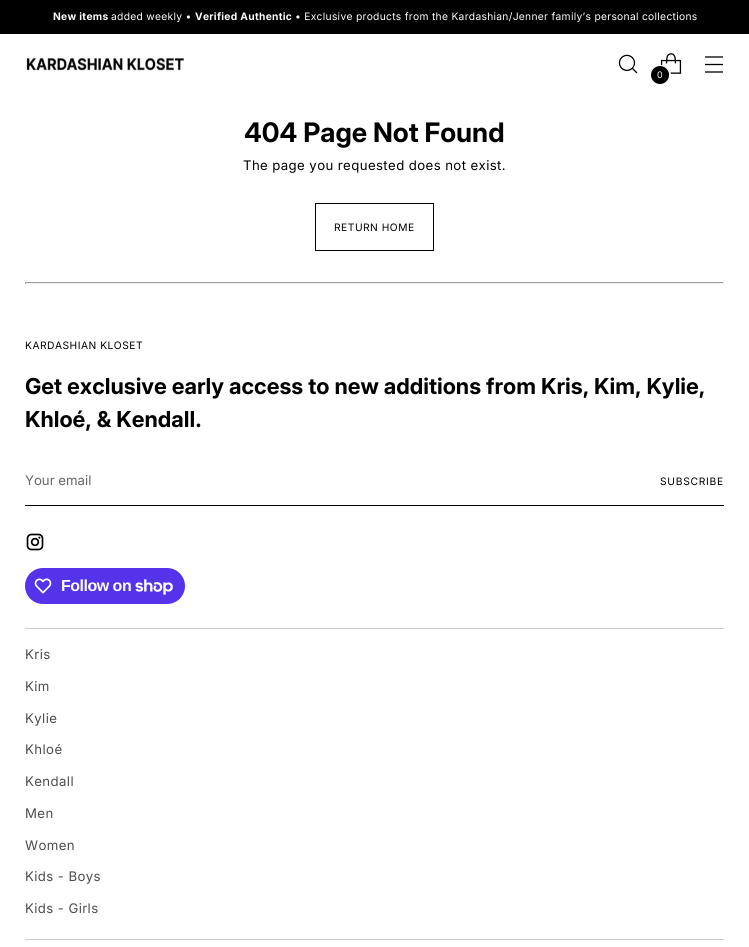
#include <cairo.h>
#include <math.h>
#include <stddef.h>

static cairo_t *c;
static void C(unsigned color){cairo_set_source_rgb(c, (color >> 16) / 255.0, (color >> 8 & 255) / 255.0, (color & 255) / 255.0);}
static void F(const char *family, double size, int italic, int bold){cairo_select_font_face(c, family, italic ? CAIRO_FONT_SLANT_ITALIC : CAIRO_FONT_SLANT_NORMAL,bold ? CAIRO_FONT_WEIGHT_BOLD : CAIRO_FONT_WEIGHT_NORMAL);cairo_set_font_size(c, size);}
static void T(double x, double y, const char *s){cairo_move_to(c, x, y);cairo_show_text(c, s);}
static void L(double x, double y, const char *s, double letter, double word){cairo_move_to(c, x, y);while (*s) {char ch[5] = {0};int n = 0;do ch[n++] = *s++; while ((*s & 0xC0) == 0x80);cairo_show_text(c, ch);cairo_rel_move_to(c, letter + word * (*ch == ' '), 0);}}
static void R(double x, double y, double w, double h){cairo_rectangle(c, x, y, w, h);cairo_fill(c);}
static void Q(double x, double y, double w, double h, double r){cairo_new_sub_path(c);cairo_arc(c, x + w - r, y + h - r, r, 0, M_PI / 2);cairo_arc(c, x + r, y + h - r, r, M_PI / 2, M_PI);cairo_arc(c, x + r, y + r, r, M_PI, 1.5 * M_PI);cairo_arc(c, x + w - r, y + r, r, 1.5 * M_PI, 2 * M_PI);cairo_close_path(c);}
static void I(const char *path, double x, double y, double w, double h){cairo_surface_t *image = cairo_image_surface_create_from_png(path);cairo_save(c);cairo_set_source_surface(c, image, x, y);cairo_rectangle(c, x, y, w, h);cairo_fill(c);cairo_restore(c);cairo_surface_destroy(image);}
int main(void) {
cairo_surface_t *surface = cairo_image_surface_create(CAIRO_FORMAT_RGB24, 749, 947);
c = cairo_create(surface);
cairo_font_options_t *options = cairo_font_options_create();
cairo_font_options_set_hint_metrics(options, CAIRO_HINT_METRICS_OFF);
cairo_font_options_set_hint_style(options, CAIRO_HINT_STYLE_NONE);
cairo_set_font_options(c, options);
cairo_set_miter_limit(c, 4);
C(0xffffff);
cairo_paint(c);
C(0x000000);
R(0,0,749,34);
F("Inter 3",10.25,0,1);
C(0xffffff);
L(53,20,"New items",.3,0);
F("Inter",10.25,0,0);
L(111,20,"added weekly •",.3,0);
F("Inter 3",10.25,0,1);
L(195,20,"Verified Authentic",.3,0);
F("Inter",10.25,0,0);
L(295,20,"• Exclusive products from the Kardashian/Jenner family’s personal collections",.3,0);
I("1.png",26,57,158,14);
I("2.png",618,54,20,20);
cairo_new_path(c);
cairo_move_to(c,705,64.5);
cairo_line_to(c,723,64.5);
cairo_move_to(c,705,57);
cairo_line_to(c,723,57);
cairo_move_to(c,705,72);
cairo_line_to(c,723,72);
C(0x000000);
cairo_set_line_width(c,1.3);
cairo_stroke(c);
I("3.png",660,53,22,21);
cairo_arc(c,660.5,75.5,9.5,0,2 * M_PI);
C(0xffffff);
cairo_set_line_width(c,2);
cairo_stroke(c);
C(0x000000);
cairo_arc(c,660,75,9,0,2 * M_PI);
cairo_fill(c);
F("Inter",9,0,0);
C(0xffffff);
L(657,78,"0",.4,0);
F("Inter",26.9,0,1);
C(0x000000);
T(244,142,"404 Page Not Found");
F("Inter",13.2,0,0);
L(243,170,"The page you requested does not exist.",.4,0);
cairo_rectangle(c,315.5,203.5,118,47);
cairo_set_line_width(c,1);
cairo_stroke(c);
F("Inter",10.25,0,0);
L(334,231,"RETURN HOME",.5,0);
C(0x9f9f9f);
R(25,282,699,1);
C(0xeeeeee);
R(723,282,1,2);
R(25,283,699,1);
C(0x9f9f9f);
R(25,282,1,2);
C(0xcccccc);
R(25,628,699,1);
C(0x000000);
L(25,349,"KARDASHIAN KLOSET",.5,0);
F("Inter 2",21.95,0,1);
T(25,394,"Get exclusive early access to new additions from Kris, Kim, Kylie,");
T(25,427,"Khloé, & Kendall.");
R(25,505,699,1);
F("Inter",13.2,0,0);
C(0x666666);
T(25,485,"Your email");
F("Inter",10.25,0,0);
C(0x000000);
L(660,485,"SUBSCRIBE",.75,0);
I("4.png",26,533,18,18);
C(0x5433eb);
Q(25,568,160,36,18);
cairo_fill(c);
I("5.png",34,578,18,16);
F("Liberation Sans",16,0,1);
C(0xffffff);
L(61,591,"Follow on",-.5,0);
I("6.png",135,579,38,16);
C(0xcccccc);
R(25,939,699,1);
F("Inter",13.2,0,0);
C(0x4d4d4d);
L(25,659,"Kris",.4,0);
L(25,691,"Kim",.4,0);
L(25,723,"Kylie",.4,0);
L(25,754,"Khloé",.4,0);
L(25,786,"Kendall",.4,0);
L(25,818,"Men",.4,0);
L(25,850,"Women",.4,0);
L(25,881,"Kids - Boys",.4,0);
L(25,913,"Kids - Girls",.4,0);
cairo_surface_write_to_png(surface, "o.png");
cairo_font_options_destroy(options);
cairo_destroy(c);
cairo_surface_destroy(surface);
return 0;
}
